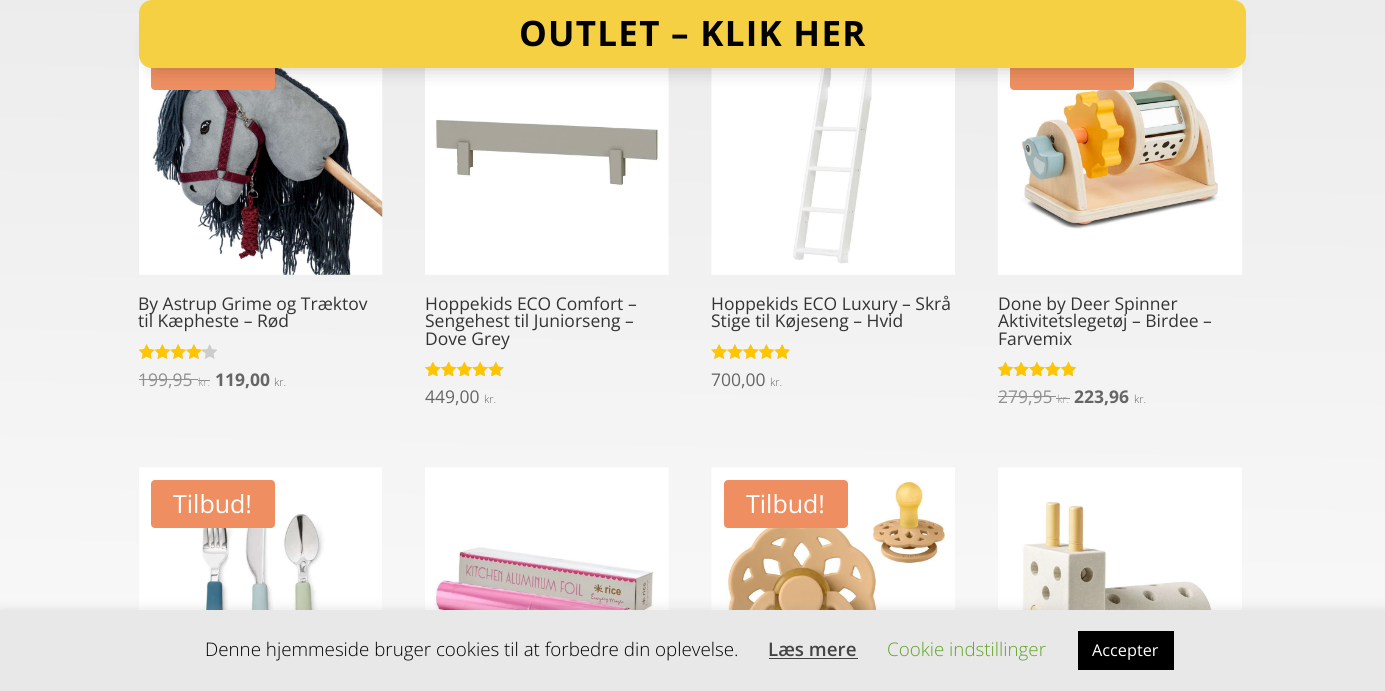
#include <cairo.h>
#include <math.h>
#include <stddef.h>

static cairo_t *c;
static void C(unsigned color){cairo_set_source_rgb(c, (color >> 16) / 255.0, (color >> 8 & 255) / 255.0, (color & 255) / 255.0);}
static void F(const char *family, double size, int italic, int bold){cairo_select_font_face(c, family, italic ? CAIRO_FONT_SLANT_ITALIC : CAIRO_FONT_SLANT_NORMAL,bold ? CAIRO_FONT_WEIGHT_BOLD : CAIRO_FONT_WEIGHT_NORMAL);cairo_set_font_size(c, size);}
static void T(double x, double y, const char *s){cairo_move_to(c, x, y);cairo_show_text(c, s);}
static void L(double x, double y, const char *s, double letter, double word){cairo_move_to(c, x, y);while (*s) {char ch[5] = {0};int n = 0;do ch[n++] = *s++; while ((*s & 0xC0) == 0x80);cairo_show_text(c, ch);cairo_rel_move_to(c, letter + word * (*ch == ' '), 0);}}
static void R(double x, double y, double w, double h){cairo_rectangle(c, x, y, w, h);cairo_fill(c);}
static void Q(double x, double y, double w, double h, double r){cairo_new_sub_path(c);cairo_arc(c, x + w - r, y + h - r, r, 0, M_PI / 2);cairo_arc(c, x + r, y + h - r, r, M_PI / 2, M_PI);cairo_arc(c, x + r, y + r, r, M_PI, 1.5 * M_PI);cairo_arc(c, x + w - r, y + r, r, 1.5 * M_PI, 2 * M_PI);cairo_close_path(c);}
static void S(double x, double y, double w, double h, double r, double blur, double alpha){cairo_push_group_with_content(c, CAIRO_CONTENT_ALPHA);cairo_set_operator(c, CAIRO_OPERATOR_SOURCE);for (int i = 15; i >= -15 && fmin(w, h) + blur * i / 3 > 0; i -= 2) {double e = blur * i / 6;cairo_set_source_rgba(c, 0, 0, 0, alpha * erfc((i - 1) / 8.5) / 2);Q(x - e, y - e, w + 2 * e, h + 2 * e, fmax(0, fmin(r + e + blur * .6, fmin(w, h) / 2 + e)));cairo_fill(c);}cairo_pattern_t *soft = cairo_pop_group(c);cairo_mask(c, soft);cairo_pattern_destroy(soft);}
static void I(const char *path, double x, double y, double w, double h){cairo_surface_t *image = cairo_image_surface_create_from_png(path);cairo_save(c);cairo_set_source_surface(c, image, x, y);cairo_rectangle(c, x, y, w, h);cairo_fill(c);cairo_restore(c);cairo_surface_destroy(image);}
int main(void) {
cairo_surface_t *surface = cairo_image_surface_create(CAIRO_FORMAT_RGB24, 1385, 691);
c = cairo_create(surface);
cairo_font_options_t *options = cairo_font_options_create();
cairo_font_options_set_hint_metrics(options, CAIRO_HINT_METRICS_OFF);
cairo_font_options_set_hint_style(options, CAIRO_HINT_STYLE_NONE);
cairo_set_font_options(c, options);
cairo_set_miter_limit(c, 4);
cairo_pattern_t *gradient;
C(0xffffff);
cairo_paint(c);
gradient = cairo_pattern_create_linear(676,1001,709,-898);
cairo_pattern_add_color_stop_rgba(gradient,0,1,1,1,1);
cairo_pattern_add_color_stop_rgba(gradient,1,0.859,0.859,0.859,1);
cairo_set_source(c,gradient);
cairo_pattern_destroy(gradient);
R(0,0,1385,610);
I("1.png",139,55,244,220);
C(0xef8f61);
Q(151,43,124,47,4);
cairo_fill(c);
I("4.png",425,68,244,207);
I("7.png",711,68,244,207);
I("10.png",997,63,246,212);
Q(1010,43,124,47,4);
cairo_fill(c);
C(0x000000);
S(156,33,1073,32,0,11,.3);
C(0xf5d042);
Q(139,0,1107,68,13);
cairo_fill(c);
F("Open Sans",35,0,1);
C(0x000000);
L(519,46,"OUTLET – KLIK HER",1.25,0);
F("Open Sans",17.5,0,0);
C(0x333333);
T(138,310,"By Astrup Grime og Træktov");
T(138,327,"til Kæpheste – Rød");
I("2.png",139,344,78,15);
I("3.png",139,344,65,15);
C(0x909090);
T(138,386,"199,95");
R(139,379,59,1);
F("Open Sans Light",11,0,0);
T(198,386,"kr.");
R(198,380,12,1);
F("Open Sans",17.5,0,1);
C(0x666666);
T(215,386,"119,00");
F("Open Sans Light",11,0,0);
T(274,386,"kr.");
F("Open Sans",17.5,0,0);
C(0x333333);
T(425,310,"Hoppekids ECO Comfort –");
T(425,327,"Sengehest til Juniorseng –");
T(425,345,"Dove Grey");
I("6.png",425,362,79,14);
I("5.png",425,361,79,15);
C(0x666666);
T(425,403,"449,00");
F("Open Sans Light",11,0,0);
T(484,403,"kr.");
F("Open Sans",17.5,0,0);
C(0x333333);
T(711,310,"Hoppekids ECO Luxury – Skrå");
T(711,327,"Stige til Køjeseng – Hvid");
I("8.png",711,344,79,15);
I("9.png",711,344,78,15);
C(0x666666);
T(711,386,"700,00");
F("Open Sans Light",11,0,0);
T(770,386,"kr.");
F("Open Sans",17.5,0,0);
C(0x333333);
T(998,310,"Done by Deer Spinner");
T(998,327,"Aktivitetslegetøj – Birdee –");
T(998,345,"Farvemix");
I("12.png",998,362,78,14);
I("11.png",998,361,79,15);
C(0x909090);
T(998,403,"279,95");
R(998,396,58,1);
F("Open Sans Light",11,0,0);
T(1057,403,"kr.");
R(1056,398,14,1);
F("Open Sans",17.5,0,1);
C(0x666666);
T(1074,403,"223,96");
F("Open Sans Light",11,0,0);
T(1134,403,"kr.");
I("13.png",139,467,243,143);
C(0xef8f61);
Q(151,480,124,48,4);
cairo_fill(c);
F("Open Sans",25,0,0);
C(0xffffff);
T(173,513,"Tilbud!");
I("14.png",425,467,244,143);
I("15.png",711,467,244,143);
C(0xef8f61);
Q(724,480,124,48,4);
cairo_fill(c);
C(0xffffff);
T(746,513,"Tilbud!");
I("16.png",998,467,244,143);
C(0xacabab);
S(0,609,1385,81,0,6,.3);
C(0xe8e8e8);
R(0,610,1385,81);
F("Open Sans Light",18.75,0,0);
C(0x000000);
T(205,656,"Denne hjemmeside bruger cookies til at forbedre din oplevelse.");
F("Open Sans SemiBold",18.75,0,0);
C(0x444444);
T(768,656,"Læs mere");
R(769,658,89,1);
F("Open Sans Light",18.75,0,0);
C(0x62a329);
T(887,656,"Cookie indstillinger");
C(0x000000);
R(1078,631,96,39);
F("Open Sans",16.25,0,0);
C(0xffffff);
T(1092,656,"Accepter");
cairo_surface_write_to_png(surface, "o.png");
cairo_font_options_destroy(options);
cairo_destroy(c);
cairo_surface_destroy(surface);
return 0;
}
